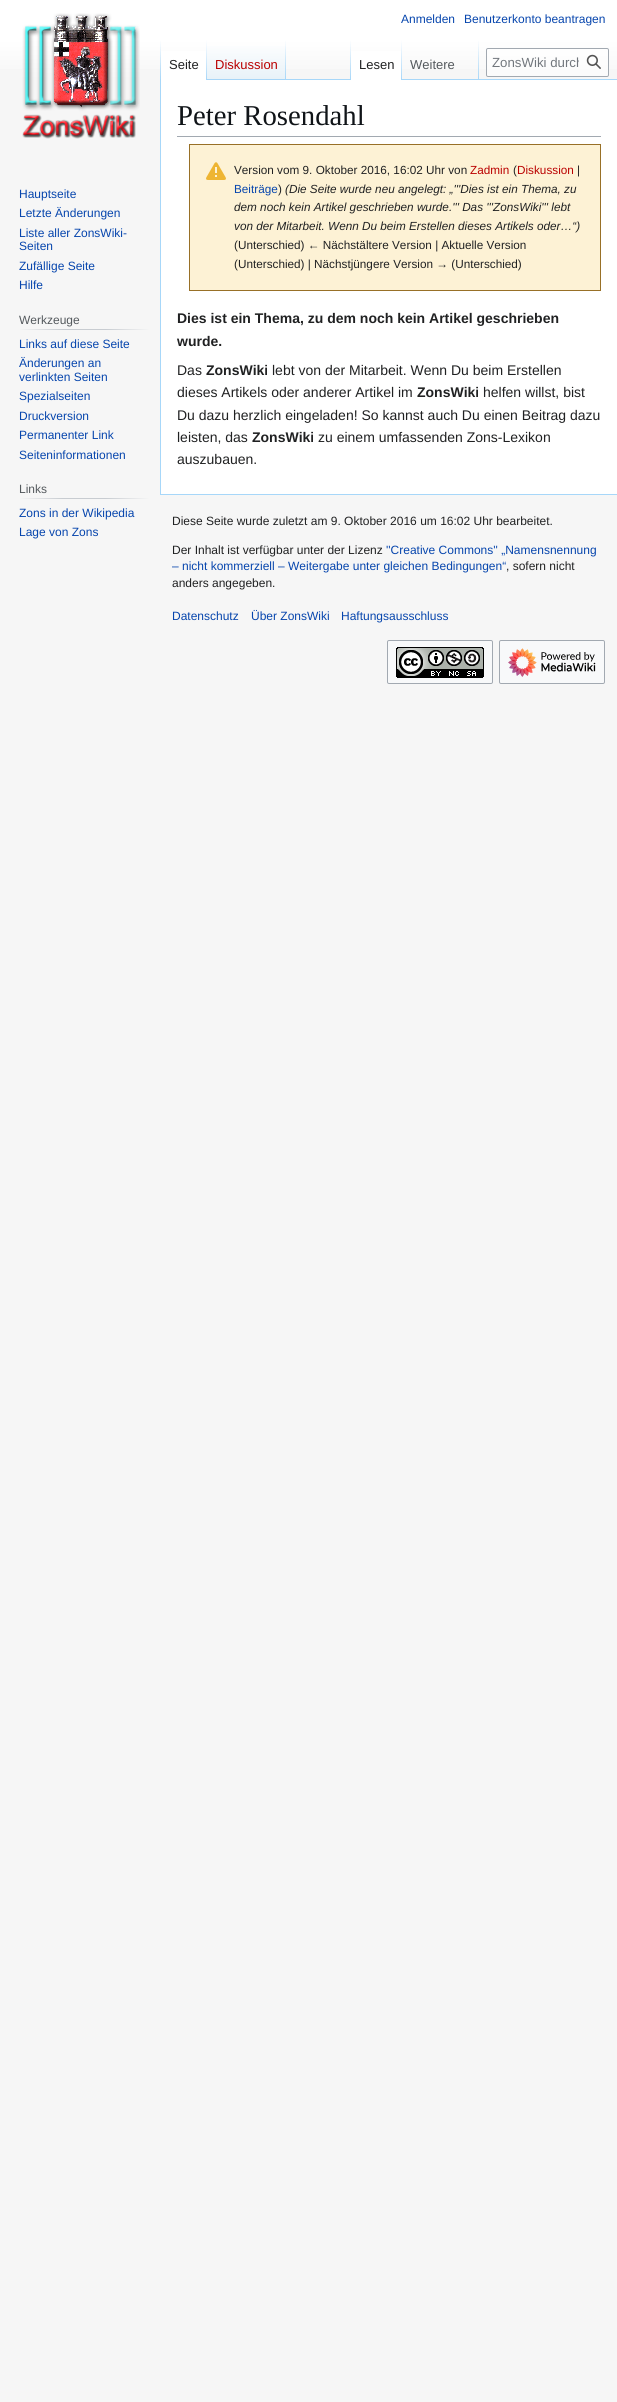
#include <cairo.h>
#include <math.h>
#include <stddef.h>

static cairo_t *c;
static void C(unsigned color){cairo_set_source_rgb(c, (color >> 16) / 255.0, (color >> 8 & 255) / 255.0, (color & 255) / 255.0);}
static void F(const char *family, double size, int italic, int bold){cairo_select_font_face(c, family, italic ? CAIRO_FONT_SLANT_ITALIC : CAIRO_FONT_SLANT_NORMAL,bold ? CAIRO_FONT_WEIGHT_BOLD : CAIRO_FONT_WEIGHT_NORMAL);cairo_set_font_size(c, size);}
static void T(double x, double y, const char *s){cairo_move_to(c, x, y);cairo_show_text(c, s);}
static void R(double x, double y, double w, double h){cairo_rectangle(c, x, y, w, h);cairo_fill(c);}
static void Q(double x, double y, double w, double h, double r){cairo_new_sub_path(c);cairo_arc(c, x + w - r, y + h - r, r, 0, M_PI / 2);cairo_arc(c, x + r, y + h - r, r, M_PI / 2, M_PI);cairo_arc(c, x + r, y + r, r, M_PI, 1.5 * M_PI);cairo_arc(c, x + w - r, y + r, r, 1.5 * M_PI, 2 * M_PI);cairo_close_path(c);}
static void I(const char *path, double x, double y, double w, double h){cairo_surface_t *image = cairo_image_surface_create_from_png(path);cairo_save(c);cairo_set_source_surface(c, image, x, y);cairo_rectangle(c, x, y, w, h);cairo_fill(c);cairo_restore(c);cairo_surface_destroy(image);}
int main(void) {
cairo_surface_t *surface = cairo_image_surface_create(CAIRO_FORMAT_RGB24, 617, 2402);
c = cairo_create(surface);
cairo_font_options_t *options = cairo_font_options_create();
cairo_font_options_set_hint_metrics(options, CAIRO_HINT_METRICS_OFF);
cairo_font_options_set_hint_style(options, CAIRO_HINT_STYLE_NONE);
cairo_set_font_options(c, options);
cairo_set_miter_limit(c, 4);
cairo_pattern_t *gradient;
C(0xf6f6f6);
cairo_paint(c);
gradient = cairo_pattern_create_linear(309,0,309,80);
cairo_pattern_add_color_stop_rgba(gradient,.5,1,1,1,1);
cairo_pattern_add_color_stop_rgba(gradient,1,0.965,0.965,0.965,1);
cairo_set_source(c,gradient);
cairo_pattern_destroy(gradient);
R(0,0,617,69);
F("Liberation Sans",12,0,0);
C(0x0645ad);
T(401,23,"Anmelden");
T(464,23,"Benutzerkonto beantragen");
C(0xa7d7f9);
R(160,494,457,1);
R(160,79,1,416);
gradient = cairo_pattern_create_linear(161,40,161,80);
cairo_pattern_add_color_stop_rgba(gradient,0,0.655,0.843,0.976,0);
cairo_pattern_add_color_stop_rgba(gradient,1,0.655,0.843,0.976,1);
cairo_set_source(c,gradient);
cairo_pattern_destroy(gradient);
R(160,40,1,40);
C(0xffffff);
R(161,51,45,29);
gradient = cairo_pattern_create_linear(207,40,207,80);
cairo_pattern_add_color_stop_rgba(gradient,0,1,1,1,1);
cairo_pattern_add_color_stop_rgba(gradient,1,0.655,0.843,0.976,1);
cairo_set_source(c,gradient);
cairo_pattern_destroy(gradient);
R(206,40,1,40);
F("Liberation Sans",13,0,0);
C(0x202122);
T(169,69,"Seite");
gradient = cairo_pattern_create_linear(247,80,247,40);
cairo_pattern_add_color_stop_rgba(gradient,0,0.467,0.757,0.965,1);
cairo_pattern_add_color_stop_rgba(gradient,.03,0.91,0.949,0.973,1);
cairo_pattern_add_color_stop_rgba(gradient,1,1,1,1,1);
cairo_set_source(c,gradient);
cairo_pattern_destroy(gradient);
R(207,46,79,34);
gradient = cairo_pattern_create_linear(286,40,286,80);
cairo_pattern_add_color_stop_rgba(gradient,0,0.655,0.843,0.976,0);
cairo_pattern_add_color_stop_rgba(gradient,1,0.655,0.843,0.976,1);
cairo_set_source(c,gradient);
cairo_pattern_destroy(gradient);
R(285,40,1,40);
C(0xba0000);
T(215,69,"Diskussion");
C(0xa7d7f9);
R(286,79,331,1);
gradient = cairo_pattern_create_linear(351,40,351,80);
cairo_pattern_add_color_stop_rgba(gradient,0,0.655,0.843,0.976,0);
cairo_pattern_add_color_stop_rgba(gradient,1,0.655,0.843,0.976,1);
cairo_set_source(c,gradient);
cairo_pattern_destroy(gradient);
R(350,40,1,40);
C(0xffffff);
R(351,51,50,29);
gradient = cairo_pattern_create_linear(402,40,402,80);
cairo_pattern_add_color_stop_rgba(gradient,0,1,1,1,1);
cairo_pattern_add_color_stop_rgba(gradient,1,0.655,0.843,0.976,1);
cairo_set_source(c,gradient);
cairo_pattern_destroy(gradient);
R(401,40,1,40);
C(0x202122);
T(359,69,"Lesen");
gradient = cairo_pattern_create_linear(479,40,479,80);
cairo_pattern_add_color_stop_rgba(gradient,0,0.655,0.843,0.976,0);
cairo_pattern_add_color_stop_rgba(gradient,1,0.655,0.843,0.976,1);
cairo_set_source(c,gradient);
cairo_pattern_destroy(gradient);
R(478,40,1,40);
C(0x54595d);
T(410,69,"Weitere");
cairo_set_source_rgba(c,1,1,1,0.5);
Q(486.5,48.5,122,28,1.5);
cairo_fill_preserve(c);
C(0xa2a9b1);
cairo_set_line_width(c,1);
cairo_stroke(c);
cairo_save(c);
cairo_rectangle(c,492,55,87,15);
cairo_clip(c);
F("Liberation Sans",13.25,0,0);
C(0x72777d);
T(492,67,"ZonsWiki durch");
cairo_restore(c);
I("1.png",586,54,15,15);
I("2.png",22,13,118,126);
F("Liberation Sans",12,0,0);
C(0x0645ad);
T(19,198,"Hauptseite");
T(19,217,"Letzte Änderungen");
T(19,237,"Liste aller ZonsWiki-");
T(19,250,"Seiten");
T(19,270,"Zufällige Seite");
T(19,289,"Hilfe");
gradient = cairo_pattern_create_linear(19,330,150,330);
cairo_pattern_add_color_stop_rgba(gradient,0,0.965,0.965,0.965,1);
cairo_pattern_add_color_stop_rgba(gradient,.33,0.784,0.8,0.82,1);
cairo_pattern_add_color_stop_rgba(gradient,.66,0.784,0.8,0.82,1);
cairo_pattern_add_color_stop_rgba(gradient,1,0.965,0.965,0.965,1);
cairo_set_source(c,gradient);
cairo_pattern_destroy(gradient);
R(19,329,131,1);
C(0x54595d);
T(19,324,"Werkzeuge");
C(0x0645ad);
T(19,348,"Links auf diese Seite");
T(19,367,"Änderungen an");
T(19,381,"verlinkten Seiten");
T(19,400,"Spezialseiten");
T(19,420,"Druckversion");
T(19,439,"Permanenter Link");
T(19,459,"Seiteninformationen");
gradient = cairo_pattern_create_linear(19,499,150,499);
cairo_pattern_add_color_stop_rgba(gradient,0,0.965,0.965,0.965,1);
cairo_pattern_add_color_stop_rgba(gradient,.33,0.784,0.8,0.82,1);
cairo_pattern_add_color_stop_rgba(gradient,.66,0.784,0.8,0.82,1);
cairo_pattern_add_color_stop_rgba(gradient,1,0.965,0.965,0.965,1);
cairo_set_source(c,gradient);
cairo_pattern_destroy(gradient);
R(19,498,131,1);
C(0x54595d);
T(19,493,"Links");
C(0x0645ad);
T(19,517,"Zons in der Wikipedia");
T(19,536,"Lage von Zons");
C(0xffffff);
R(161,80,456,414);
C(0xa2a9b1);
R(177,136,424,1);
F("Liberation Serif",28.75,0,0);
C(0x101418);
T(177,125,"Peter Rosendahl");
C(0xfdf2d5);
cairo_rectangle(c,189.5,144.5,411,146);
cairo_fill_preserve(c);
C(0x987027);
cairo_stroke(c);
I("3.png",206,162,20,18);
F("Liberation Sans",11.75,0,0);
C(0x202122);
T(234,174,"Version vom 9. Oktober 2016, 16:02 Uhr von");
C(0xba0000);
T(470,174,"Zadmin");
C(0x202122);
T(513,174,"(");
C(0xba0000);
T(517,174,"Diskussion");
C(0x202122);
T(577,174,"|");
C(0x0645ad);
T(234,193,"Beiträge");
C(0x202122);
T(278,193,")");
F("Liberation Sans",11.75,1,0);
T(285,193,"(Die Seite wurde neu angelegt: „'''Dies ist ein Thema, zu");
T(234,211,"dem noch kein Artikel geschrieben wurde.''' Das '''ZonsWiki''' lebt");
T(234,230,"von der Mitarbeit. Wenn Du beim Erstellen dieses Artikels oder…“)");
F("Liberation Sans",11.75,0,0);
T(234,249,"(Unterschied) ← Nächstältere Version | Aktuelle Version");
T(234,268,"(Unterschied) | Nächstjüngere Version → (Unterschied)");
F("Liberation Sans",14,0,1);
T(177,323,"Dies ist ein Thema, zu dem noch kein Artikel geschrieben");
T(177,346,"wurde.");
F("Liberation Sans",14,0,0);
T(177,375,"Das");
F("Liberation Sans",14,0,1);
T(206,375,"ZonsWiki");
F("Liberation Sans",14,0,0);
T(272,375,"lebt von der Mitarbeit. Wenn Du beim Erstellen");
T(177,397,"dieses Artikels oder anderer Artikel im");
F("Liberation Sans",14,0,1);
T(417,397,"ZonsWiki");
F("Liberation Sans",14,0,0);
T(483,397,"helfen willst, bist");
T(177,420,"Du dazu herzlich eingeladen! So kannst auch Du einen Beitrag dazu");
T(177,442,"leisten, das");
F("Liberation Sans",14,0,1);
T(252,442,"ZonsWiki");
F("Liberation Sans",14,0,0);
T(318,442,"zu einem umfassenden Zons-Lexikon");
T(177,464,"auszubauen.");
F("Liberation Sans",12,0,0);
T(172,525,"Diese Seite wurde zuletzt am 9. Oktober 2016 um 16:02 Uhr bearbeitet.");
T(172,554,"Der Inhalt ist verfügbar unter der Lizenz");
C(0x0645ad);
T(386,554,"''Creative Commons'' „Namensnennung");
T(172,570,"– nicht kommerziell – Weitergabe unter gleichen Bedingungen“");
C(0x202122);
T(506,570,", sofern nicht");
T(172,587,"anders angegeben.");
C(0x0645ad);
T(172,620,"Datenschutz");
T(251,620,"Über ZonsWiki");
T(341,620,"Haftungsausschluss");
C(0xf8f9fa);
Q(387.5,640.5,105,43,1.5);
cairo_fill_preserve(c);
C(0xa2a9b1);
cairo_stroke(c);
I("4.png",396,647,88,31);
C(0xf8f9fa);
Q(499.5,640.5,105,43,1.5);
cairo_fill_preserve(c);
C(0xa2a9b1);
cairo_stroke(c);
I("5.png",508,648,88,29);
cairo_surface_write_to_png(surface, "o.png");
cairo_font_options_destroy(options);
cairo_destroy(c);
cairo_surface_destroy(surface);
return 0;
}
